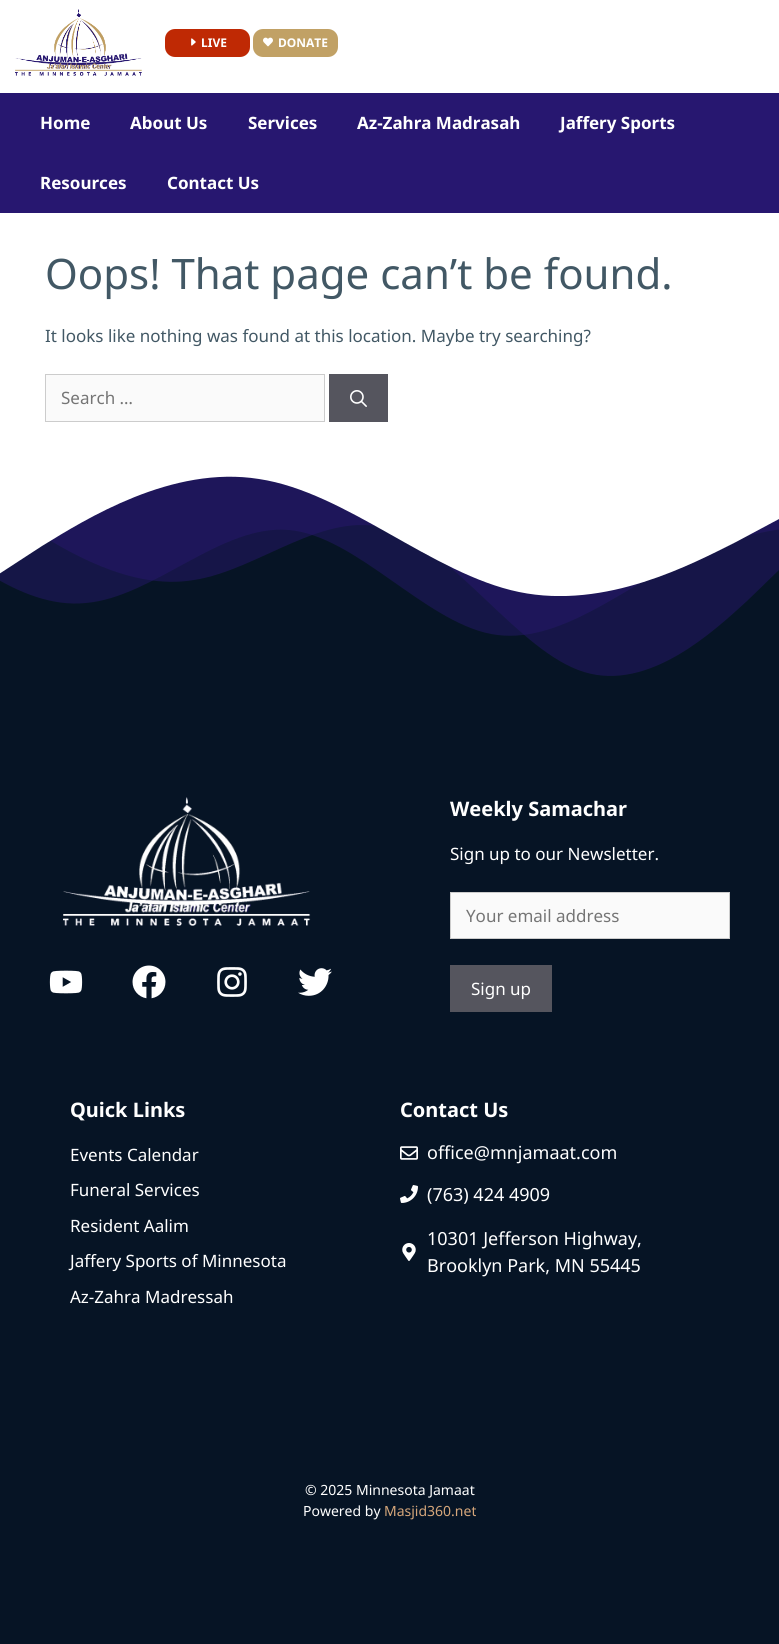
#include <cairo.h>
#include <math.h>
#include <stddef.h>

static cairo_t *c;
static void C(unsigned color){cairo_set_source_rgb(c, (color >> 16) / 255.0, (color >> 8 & 255) / 255.0, (color & 255) / 255.0);}
static void F(const char *family, double size, int italic, int bold){cairo_select_font_face(c, family, italic ? CAIRO_FONT_SLANT_ITALIC : CAIRO_FONT_SLANT_NORMAL,bold ? CAIRO_FONT_WEIGHT_BOLD : CAIRO_FONT_WEIGHT_NORMAL);cairo_set_font_size(c, size);}
static void T(double x, double y, const char *s){cairo_move_to(c, x, y);cairo_show_text(c, s);}
static void R(double x, double y, double w, double h){cairo_rectangle(c, x, y, w, h);cairo_fill(c);}
static void Q(double x, double y, double w, double h, double r){cairo_new_sub_path(c);cairo_arc(c, x + w - r, y + h - r, r, 0, M_PI / 2);cairo_arc(c, x + r, y + h - r, r, M_PI / 2, M_PI);cairo_arc(c, x + r, y + r, r, M_PI, 1.5 * M_PI);cairo_arc(c, x + w - r, y + r, r, 1.5 * M_PI, 2 * M_PI);cairo_close_path(c);}
static void I(const char *path, double x, double y, double w, double h){cairo_surface_t *image = cairo_image_surface_create_from_png(path);cairo_save(c);cairo_set_source_surface(c, image, x, y);cairo_rectangle(c, x, y, w, h);cairo_fill(c);cairo_restore(c);cairo_surface_destroy(image);}
int main(void) {
cairo_surface_t *surface = cairo_image_surface_create(CAIRO_FORMAT_RGB24, 779, 1644);
c = cairo_create(surface);
cairo_font_options_t *options = cairo_font_options_create();
cairo_font_options_set_hint_metrics(options, CAIRO_HINT_METRICS_OFF);
cairo_font_options_set_hint_style(options, CAIRO_HINT_STYLE_NONE);
cairo_set_font_options(c, options);
cairo_set_miter_limit(c, 4);
C(0xffffff);
cairo_paint(c);
I("1.png",15,9,127,67);
C(0xbf2904);
Q(165,29,85,28,10);
cairo_fill(c);
I("2.png",191,38,5,8);
F("Noto Sans",12,0,1);
C(0xffffff);
T(201,47,"LIVE");
C(0xc1a165);
Q(253,29,85,28,10);
cairo_fill(c);
I("3.png",263,37,10,10);
C(0xffffff);
T(278,47,"DONATE");
C(0x271770);
R(0,93,779,120);
F("Noto Sans",17,0,1);
C(0xffffff);
T(40,129,"Home");
T(130,129,"About Us");
T(248,129,"Services");
T(357,129,"Az-Zahra Madrasah");
T(560,129,"Jaffery Sports");
T(40,189,"Resources");
T(167,189,"Contact Us");
F("Noto Sans",42,0,0);
C(0x425865);
T(45,289,"Oops! That page can’t be found.");
F("Noto Sans",17,0,0);
T(45,342,"It looks like nothing was found at this location. Maybe try searching?");
C(0xfafafa);
cairo_rectangle(c,45.5,374.5,279,47);
cairo_fill_preserve(c);
C(0xcccccc);
cairo_set_line_width(c,1);
cairo_stroke(c);
C(0x757575);
T(61,404,"Search …");
C(0x55555e);
R(329,374,59,48);
I("4.png",350,390,17,17);
C(0x061425);
R(0,476,779,1168);
cairo_set_source_rgba(c,0.157,0.094,0.439,0.48);
cairo_new_path(c);
cairo_move_to(c,779,456);
cairo_line_to(c,-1,456);
cairo_line_to(c,-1,509);
cairo_line_to(c,31,529);
cairo_curve_to(c,64,549,129,591,194,580);
cairo_curve_to(c,259,570,324,509,389,529);
cairo_curve_to(c,454,549,519,652,584,672);
cairo_curve_to(c,649,692,714,631,747,601);
cairo_line_to(c,779,570);
cairo_close_path(c);
cairo_fill(c);
cairo_set_source_rgba(c,0.157,0.094,0.439,0.46);
cairo_new_path(c);
cairo_move_to(c,-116,487);
cairo_line_to(c,-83,517);
cairo_curve_to(c,-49,548,19,610,86,603);
cairo_curve_to(c,154,597,221,524,289,530);
cairo_curve_to(c,356,536,424,621,491,634);
cairo_curve_to(c,559,647,626,585,694,554);
cairo_curve_to(c,761,524,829,524,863,524);
cairo_line_to(c,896,524);
cairo_line_to(c,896,456);
cairo_line_to(c,-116,456);
cairo_close_path(c);
cairo_fill(c);
cairo_save(c);
cairo_rectangle(c,0,456,779,140);
cairo_clip(c);
C(0xffffff);
cairo_new_path(c);
cairo_move_to(c,779,456);
cairo_line_to(c,-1,456);
cairo_line_to(c,-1,574);
cairo_line_to(c,42,546);
cairo_curve_to(c,86,519,172,465,259,479);
cairo_curve_to(c,346,492,432,574,519,592);
cairo_curve_to(c,606,610,692,564,736,542);
cairo_line_to(c,779,519);
cairo_close_path(c);
cairo_fill(c);
cairo_restore(c);
I("5.png",63,797,248,129);
I("6.png",49,970,34,24);
I("7.png",132,965,34,34);
I("8.png",217,967,30,30);
I("9.png",298,968,34,28);
F("Noto Sans",20,0,1);
C(0xffffff);
T(450,816,"Weekly Samachar");
F("Noto Sans",17,0,0);
T(450,860,"Sign up to our Newsletter.");
C(0xfafafa);
cairo_rectangle(c,450.5,892.5,279,46);
cairo_fill_preserve(c);
C(0xcccccc);
cairo_stroke(c);
C(0x757575);
T(466,922,"Your email address");
C(0x55555e);
R(450,965,102,47);
C(0xffffff);
T(471,995,"Sign up");
F("Noto Sans",20,0,1);
T(70,1117,"Quick Links");
F("Noto Sans",17,0,0);
T(70,1161,"Events Calendar");
T(70,1196,"Funeral Services");
T(70,1232,"Resident Aalim");
T(70,1267,"Jaffery Sports of Minnesota");
T(70,1303,"Az-Zahra Madressah");
F("Noto Sans",20,0,1);
T(400,1117,"Contact Us");
I("10.png",400,1146,18,14);
F("Noto Sans",18,0,0);
T(427,1159,"office@mnjamaat.com");
I("11.png",400,1185,18,18);
T(427,1201,"(763) 424 4909");
I("12.png",402,1243,14,18);
T(427,1245,"10301 Jefferson Highway,");
T(427,1272,"Brooklyn Park, MN 55445");
F("Noto Sans",14,0,0);
T(305,1495,"© 2025 Minnesota Jamaat");
T(303,1516,"Powered by");
C(0xd5a67a);
T(384,1516,"Masjid360.net");
cairo_surface_write_to_png(surface, "o.png");
cairo_font_options_destroy(options);
cairo_destroy(c);
cairo_surface_destroy(surface);
return 0;
}
